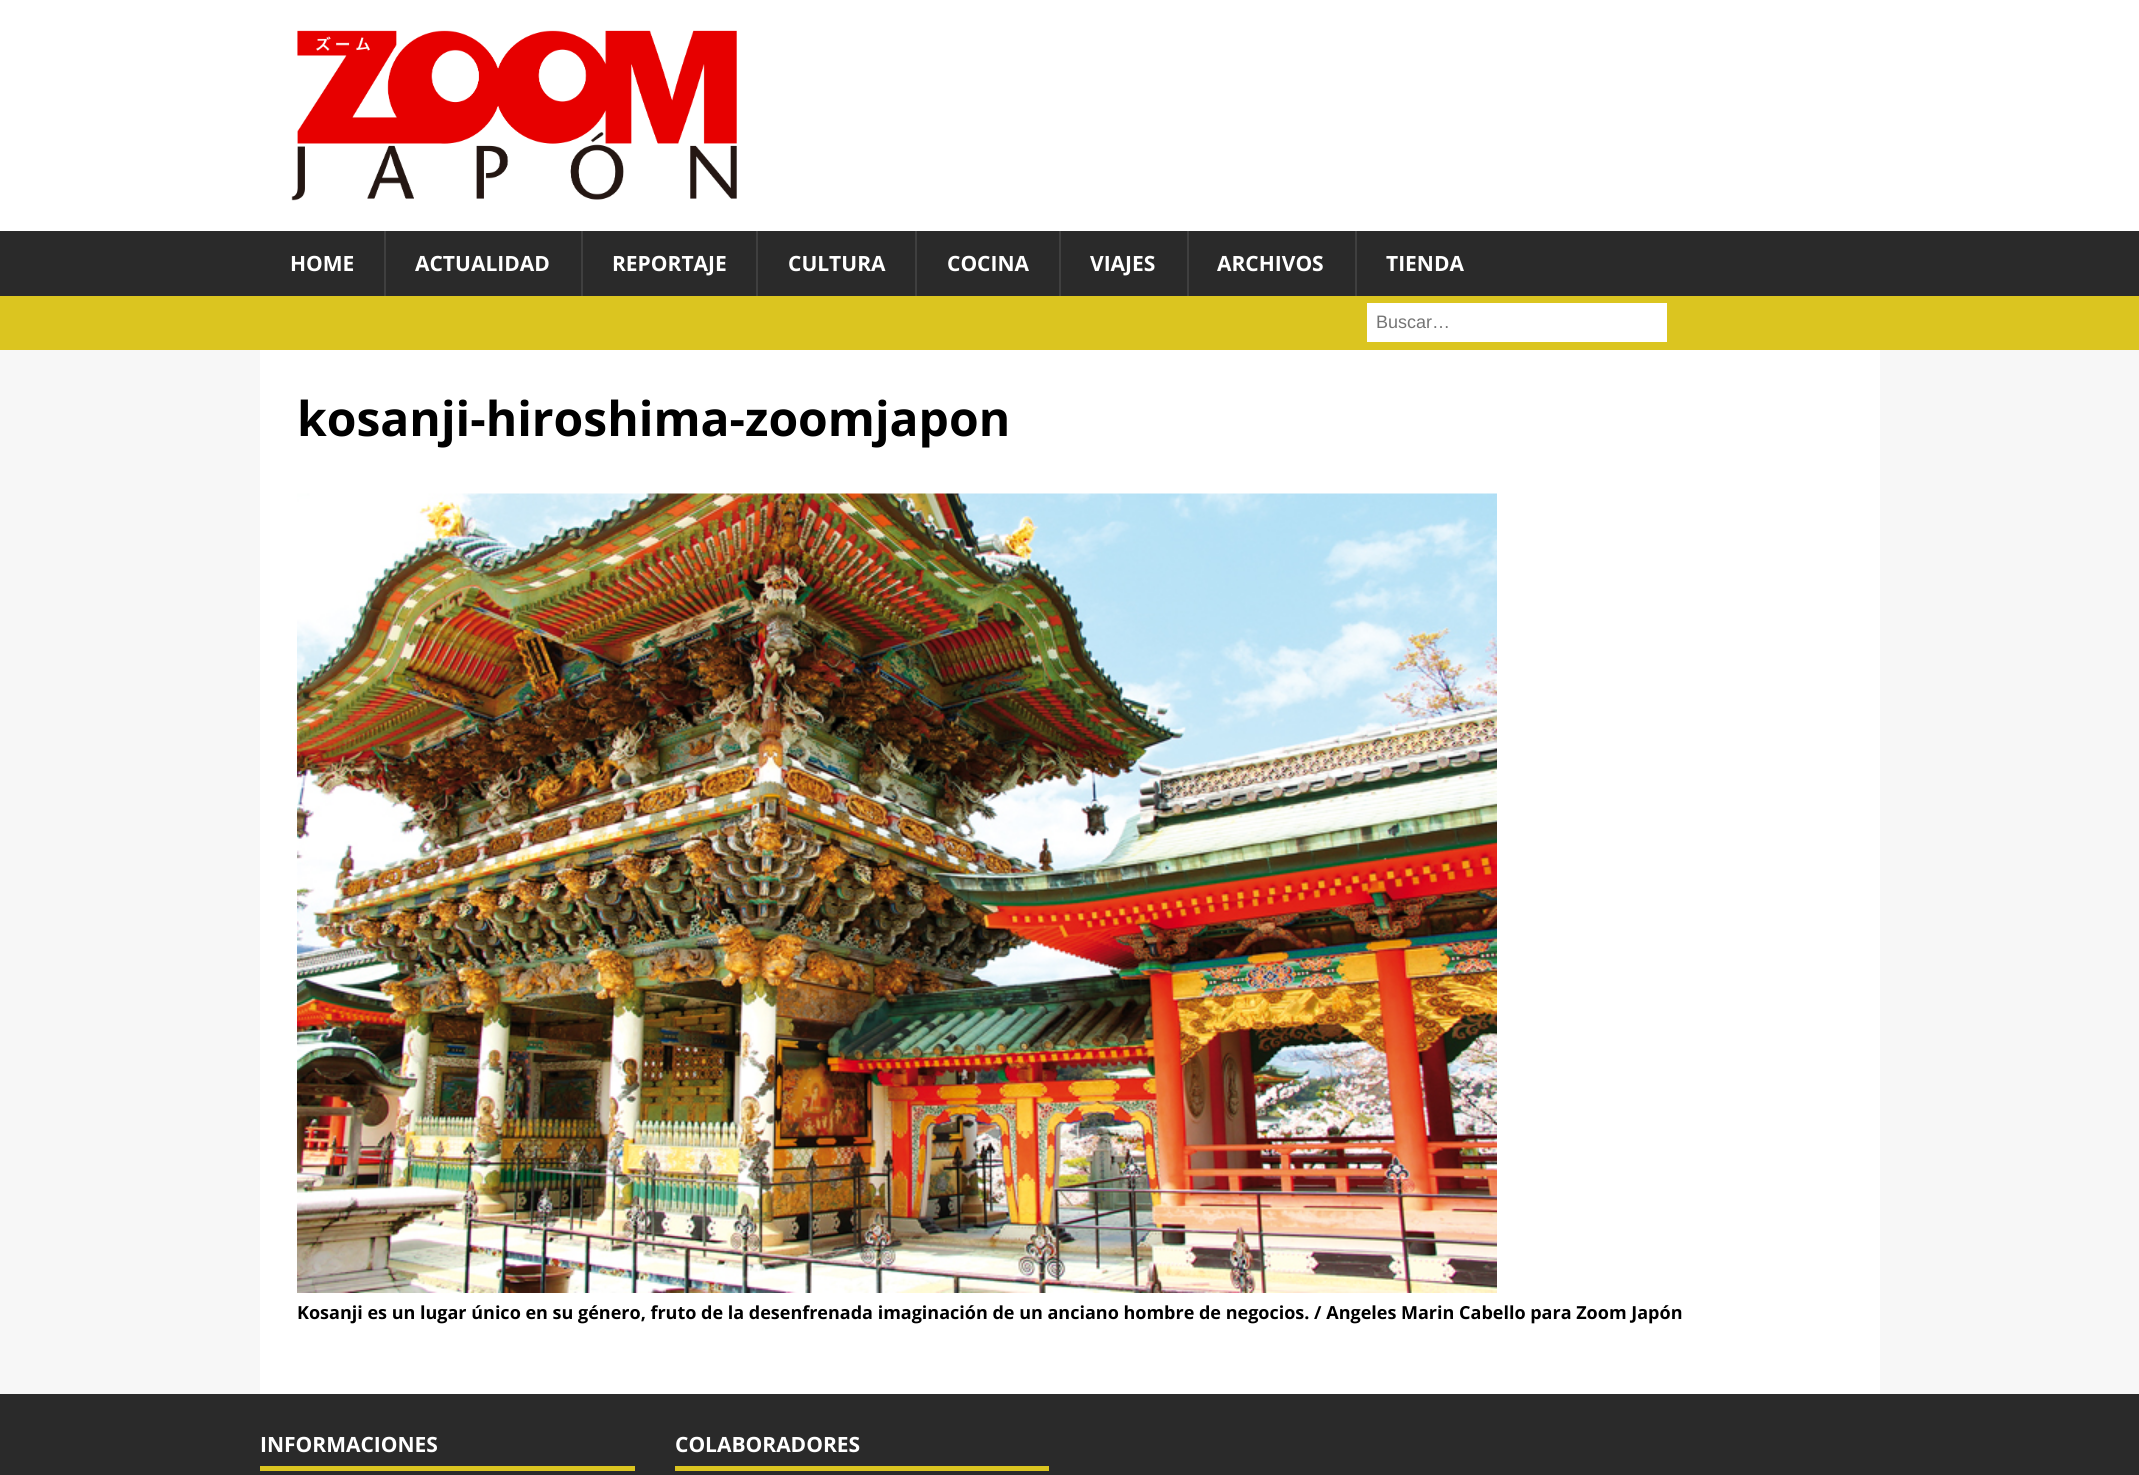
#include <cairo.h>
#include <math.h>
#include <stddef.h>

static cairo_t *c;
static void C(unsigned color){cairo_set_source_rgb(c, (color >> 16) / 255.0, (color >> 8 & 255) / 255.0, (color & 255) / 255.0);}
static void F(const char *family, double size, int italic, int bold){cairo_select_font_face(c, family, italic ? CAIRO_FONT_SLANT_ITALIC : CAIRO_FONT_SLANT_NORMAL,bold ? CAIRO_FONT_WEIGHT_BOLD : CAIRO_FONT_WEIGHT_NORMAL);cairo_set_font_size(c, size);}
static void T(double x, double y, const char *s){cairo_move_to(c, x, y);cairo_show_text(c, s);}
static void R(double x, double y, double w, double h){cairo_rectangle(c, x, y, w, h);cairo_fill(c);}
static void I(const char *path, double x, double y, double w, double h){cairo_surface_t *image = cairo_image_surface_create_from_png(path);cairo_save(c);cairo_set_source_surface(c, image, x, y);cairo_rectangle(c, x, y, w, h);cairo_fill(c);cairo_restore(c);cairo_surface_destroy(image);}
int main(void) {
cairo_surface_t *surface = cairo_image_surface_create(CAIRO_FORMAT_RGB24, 2139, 1475);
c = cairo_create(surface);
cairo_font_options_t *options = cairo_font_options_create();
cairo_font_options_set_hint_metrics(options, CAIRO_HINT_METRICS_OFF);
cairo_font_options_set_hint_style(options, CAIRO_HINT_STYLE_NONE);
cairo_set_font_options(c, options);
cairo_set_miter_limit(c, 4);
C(0xf7f7f7);
cairo_paint(c);
C(0xffffff);
R(0,0,2139,231);
I("1.png",291,30,446,171);
C(0x2a2a2a);
R(0,231,2139,65);
F("Open Sans",21,0,1);
C(0xffffff);
T(290,271,"HOME");
C(0x3f3f3f);
R(384,231,2,65);
C(0xffffff);
T(415,271,"ACTUALIDAD");
C(0x3f3f3f);
R(581,231,2,65);
C(0xffffff);
T(612,271,"REPORTAJE");
C(0x3f3f3f);
R(756,231,2,65);
C(0xffffff);
T(788,271,"CULTURA");
C(0x3f3f3f);
R(915,231,2,65);
C(0xffffff);
T(947,271,"COCINA");
C(0x3f3f3f);
R(1059,231,2,65);
C(0xffffff);
T(1090,271,"VIAJES");
C(0x3f3f3f);
R(1187,231,2,65);
C(0xffffff);
T(1217,271,"ARCHIVOS");
C(0x3f3f3f);
R(1355,231,2,65);
C(0xffffff);
T(1386,271,"TIENDA");
C(0xdbc520);
R(0,296,2139,54);
C(0xffffff);
R(1367,303,300,39);
F("Liberation Sans",18,0,0);
C(0x757575);
T(1376,328,"Buscar…");
C(0xffffff);
R(260,350,1620,1044);
F("Open Sans",48,0,1);
C(0x000000);
T(297,436,"kosanji-hiroshima-zoomjapon");
I("2.png",297,493,1200,800);
F("Open Sans",18,0,1);
T(297,1319,"Kosanji es un lugar único en su género, fruto de la desenfrenada imaginación de un anciano hombre de negocios. / Angeles Marin Cabello para Zoom Japón");
C(0x2a2a2a);
R(0,1394,2139,81);
C(0xdbc520);
R(260,1466,375,5);
F("Open Sans",21,0,1);
C(0xffffff);
T(260,1452,"INFORMACIONES");
C(0xdbc520);
R(675,1466,374,5);
C(0xffffff);
T(675,1452,"COLABORADORES");
cairo_surface_write_to_png(surface, "o.png");
cairo_font_options_destroy(options);
cairo_destroy(c);
cairo_surface_destroy(surface);
return 0;
}
